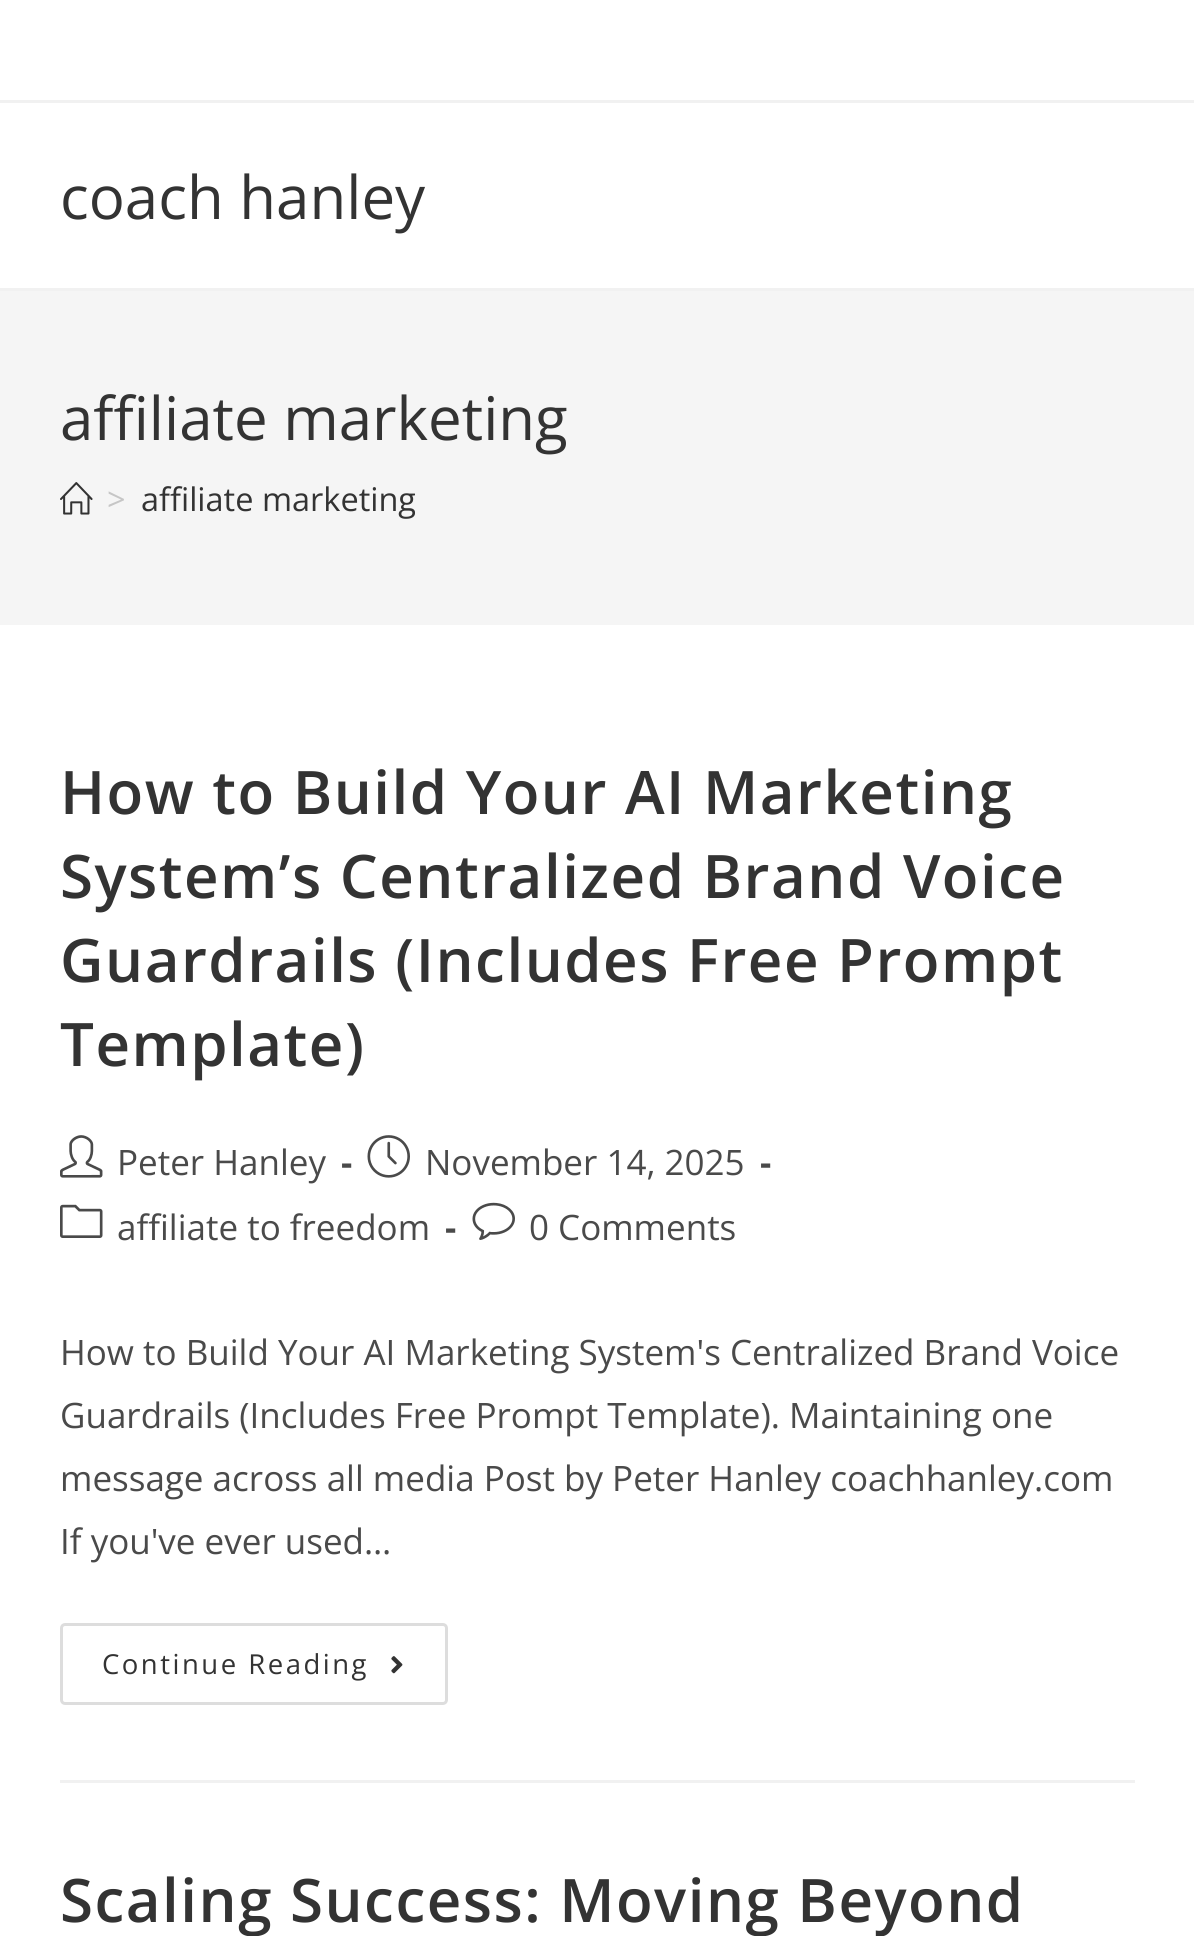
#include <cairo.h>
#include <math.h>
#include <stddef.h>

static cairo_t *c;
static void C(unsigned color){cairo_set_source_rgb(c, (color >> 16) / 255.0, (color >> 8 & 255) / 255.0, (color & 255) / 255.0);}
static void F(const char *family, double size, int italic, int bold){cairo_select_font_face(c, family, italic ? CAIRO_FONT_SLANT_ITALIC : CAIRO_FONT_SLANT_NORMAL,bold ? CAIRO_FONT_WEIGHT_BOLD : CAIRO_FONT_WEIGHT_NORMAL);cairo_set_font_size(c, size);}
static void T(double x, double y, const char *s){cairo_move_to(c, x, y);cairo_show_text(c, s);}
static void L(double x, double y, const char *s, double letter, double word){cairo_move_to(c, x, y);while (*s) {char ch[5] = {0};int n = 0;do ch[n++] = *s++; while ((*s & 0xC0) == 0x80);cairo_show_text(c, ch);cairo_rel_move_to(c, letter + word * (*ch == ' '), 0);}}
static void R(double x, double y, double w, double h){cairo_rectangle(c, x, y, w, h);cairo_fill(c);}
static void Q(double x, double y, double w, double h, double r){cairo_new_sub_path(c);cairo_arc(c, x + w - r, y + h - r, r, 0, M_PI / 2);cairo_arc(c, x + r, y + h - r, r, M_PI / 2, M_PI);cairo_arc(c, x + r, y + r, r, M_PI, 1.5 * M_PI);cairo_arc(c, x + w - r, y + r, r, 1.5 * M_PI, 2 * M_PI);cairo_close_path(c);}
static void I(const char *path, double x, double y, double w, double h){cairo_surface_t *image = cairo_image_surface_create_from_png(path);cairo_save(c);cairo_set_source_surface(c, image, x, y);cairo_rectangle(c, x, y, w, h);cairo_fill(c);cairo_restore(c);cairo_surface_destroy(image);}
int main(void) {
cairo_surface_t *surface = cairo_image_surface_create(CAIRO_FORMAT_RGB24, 1194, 1936);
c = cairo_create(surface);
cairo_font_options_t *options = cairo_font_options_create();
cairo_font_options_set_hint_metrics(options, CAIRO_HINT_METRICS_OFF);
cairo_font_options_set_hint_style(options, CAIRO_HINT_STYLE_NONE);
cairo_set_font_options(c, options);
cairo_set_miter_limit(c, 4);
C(0xffffff);
cairo_paint(c);
C(0xf1f1f1);
R(0,100,1194,3);
R(0,288,1194,3);
F("Open Sans",60,0,0);
C(0x333333);
T(60,219,"coach hanley");
C(0xf5f5f5);
R(0,291,1194,334);
C(0x333333);
T(60,440,"affiliate marketing");
I("1.png",60,482,33,33);
F("Open Sans",32.5,0,0);
C(0xc6c6c6);
T(107,511,">");
C(0x333333);
T(141,511,"affiliate marketing");
C(0xf1f1f1);
R(60,1780,1075,3);
F("Open Sans SemiBold",60,0,0);
C(0x333333);
L(60,814,"How to Build Your AI Marketing",1.5,0);
L(60,898,"System’s Centralized Brand Voice",1.5,0);
L(60,982,"Guardrails (Includes Free Prompt",1.5,0);
L(60,1066,"Template)",1.5,0);
I("2.png",60,1135,43,43);
F("Open Sans",35,0,0);
C(0x4a4a4a);
T(117,1175,"Peter Hanley");
F("Open Sans",35,0,1);
T(341,1175,"-");
I("3.png",367,1135,43,43);
F("Open Sans",35,0,0);
T(425,1175,"November 14, 2025");
F("Open Sans",35,0,1);
T(760,1175,"-");
I("4.png",60,1204,43,34);
F("Open Sans",35,0,0);
T(117,1240,"affiliate to freedom");
F("Open Sans",35,0,1);
T(445,1240,"-");
I("5.png",472,1202,43,38);
F("Open Sans",35,0,0);
T(529,1240,"0 Comments");
T(60,1365,"How to Build Your AI Marketing System's Centralized Brand Voice");
T(60,1428,"Guardrails (Includes Free Prompt Template). Maintaining one");
T(60,1491,"message across all media Post by Peter Hanley coachhanley.com");
T(60,1554,"If you've ever used…");
Q(61.5,1624.5,385,79,3.5);
C(0xdddddd);
cairo_set_line_width(c,3);
cairo_stroke(c);
F("Open Sans",27.5,0,0);
C(0x333333);
L(102,1674,"Continue Reading",2.5,0);
I("6.png",391,1656,12,18);
F("Open Sans SemiBold",60,0,0);
L(60,1922,"Scaling Success: Moving Beyond",1.5,0);
cairo_surface_write_to_png(surface, "o.png");
cairo_font_options_destroy(options);
cairo_destroy(c);
cairo_surface_destroy(surface);
return 0;
}
